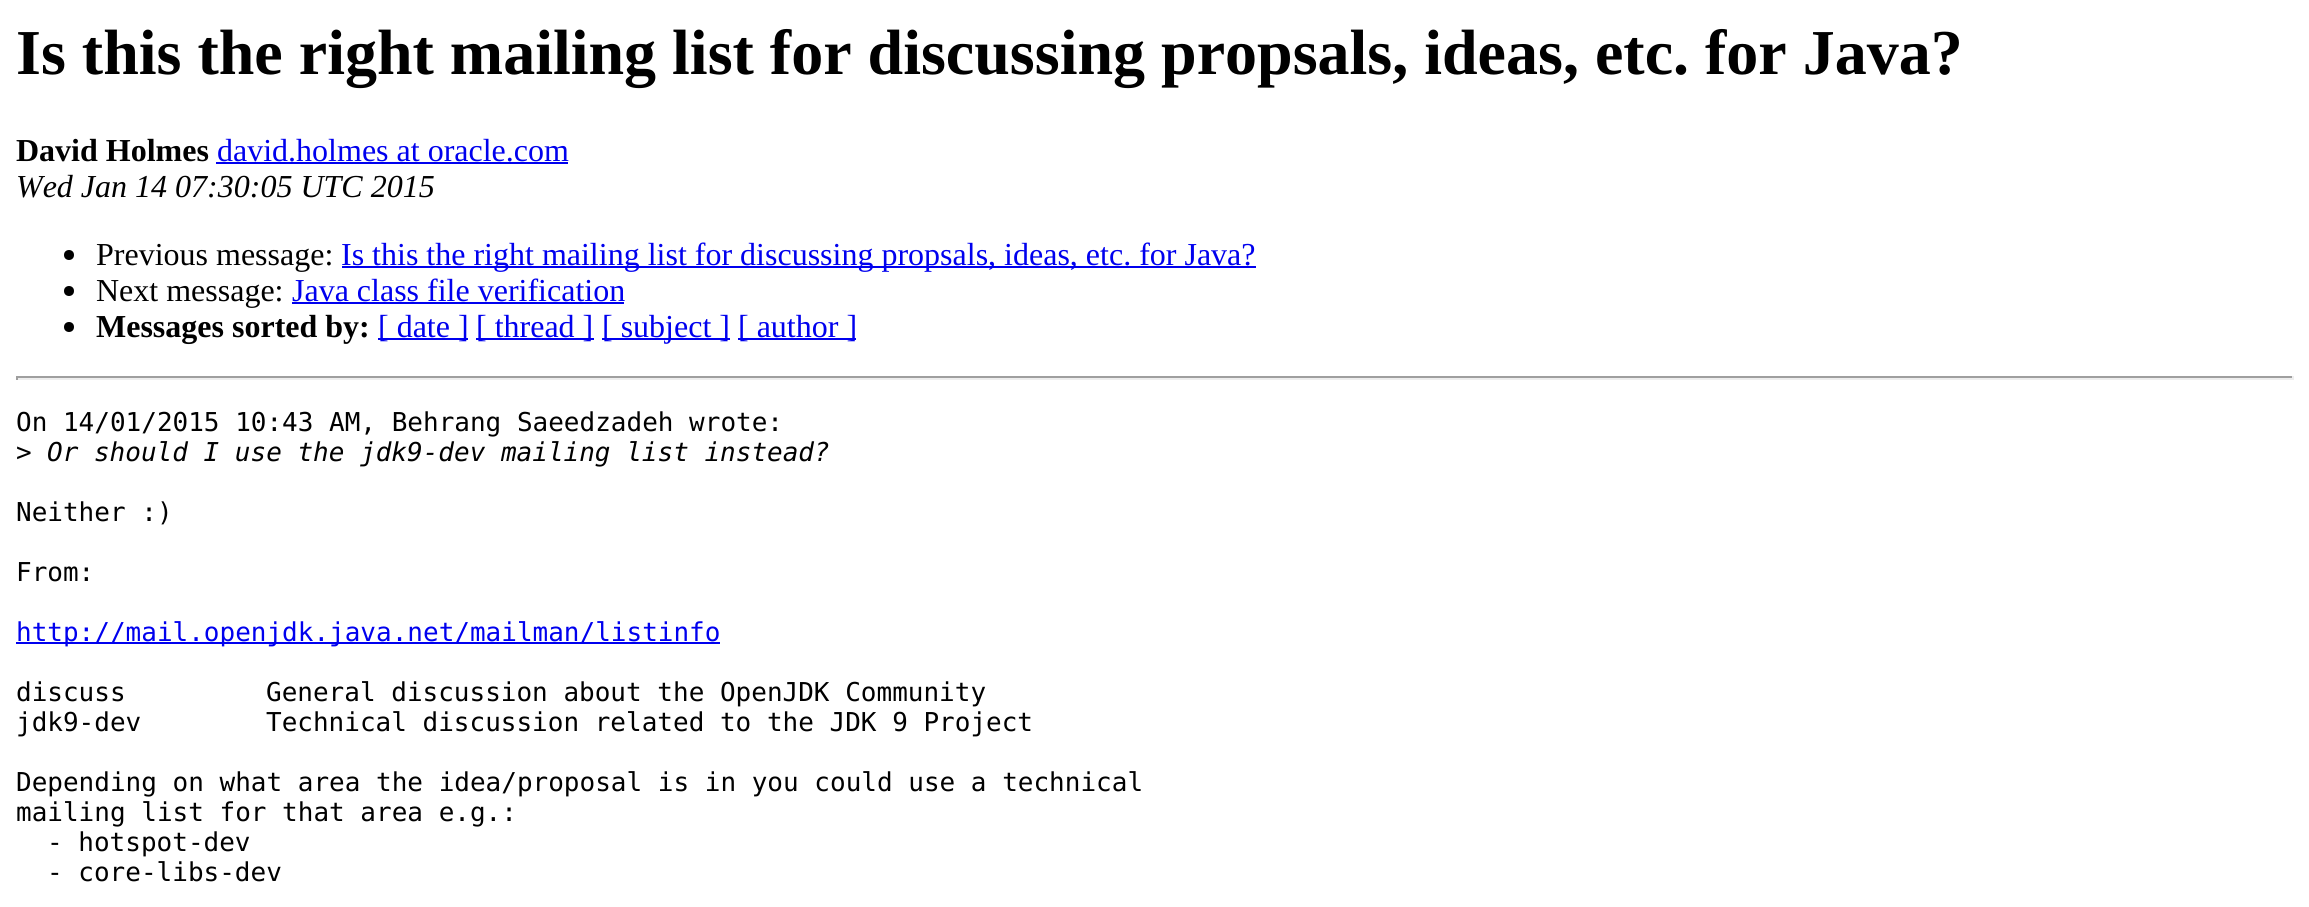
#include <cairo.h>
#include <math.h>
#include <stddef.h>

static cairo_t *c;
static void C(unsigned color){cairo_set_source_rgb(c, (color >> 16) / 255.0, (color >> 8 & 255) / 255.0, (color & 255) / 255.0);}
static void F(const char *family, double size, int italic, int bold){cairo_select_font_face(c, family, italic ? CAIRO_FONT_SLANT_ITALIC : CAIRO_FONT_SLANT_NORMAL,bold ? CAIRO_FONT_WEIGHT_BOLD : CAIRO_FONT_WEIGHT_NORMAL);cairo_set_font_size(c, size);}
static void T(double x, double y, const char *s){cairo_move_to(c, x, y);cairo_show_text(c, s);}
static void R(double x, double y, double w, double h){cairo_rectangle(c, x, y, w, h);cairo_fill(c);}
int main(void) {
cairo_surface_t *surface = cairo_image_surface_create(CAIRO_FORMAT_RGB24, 2309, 907);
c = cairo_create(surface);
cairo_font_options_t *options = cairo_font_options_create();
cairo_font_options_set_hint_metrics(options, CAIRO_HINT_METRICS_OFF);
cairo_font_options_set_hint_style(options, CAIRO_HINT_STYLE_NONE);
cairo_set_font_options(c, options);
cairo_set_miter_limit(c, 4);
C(0xffffff);
cairo_paint(c);
F("Liberation Serif",64,0,1);
C(0x000000);
T(16,74,"Is this the right mailing list for discussing propsals, ideas, etc. for Java?");
F("Liberation Serif",32,0,1);
T(16,161,"David Holmes");
F("Liberation Serif",32,0,0);
C(0x0000ee);
T(217,161,"david.holmes at oracle.com");
R(216,162,352,2);
F("Liberation Serif",32,1,0);
C(0x000000);
T(16,197,"Wed Jan 14 07:30:05 UTC 2015");
cairo_new_path(c);
cairo_arc(c,69,255,5,0,2 * M_PI);
cairo_fill(c);
F("Liberation Serif",32,0,0);
T(96,265,"Previous message:");
C(0x0000ee);
R(342,266,914,2);
T(341,265,"Is this the right mailing list for discussing propsals, ideas, etc. for Java?");
C(0x000000);
cairo_new_path(c);
cairo_arc(c,69,291,5,0,2 * M_PI);
cairo_fill(c);
T(96,301,"Next message:");
C(0x0000ee);
T(292,301,"Java class file verification");
R(292,302,332,2);
C(0x000000);
cairo_new_path(c);
cairo_arc(c,69,327,5,0,2 * M_PI);
cairo_fill(c);
F("Liberation Serif",32,0,1);
T(96,337,"Messages sorted by:");
C(0x0000ee);
R(378,338,90,2);
F("Liberation Serif",32,0,0);
T(378,337,"[ date ]");
R(476,338,118,2);
T(476,337,"[ thread ]");
R(602,338,128,2);
T(602,337,"[ subject ]");
R(738,338,118,2);
T(738,337,"[ author ]");
C(0x9f9f9f);
R(16,376,2278,2);
C(0xeeeeee);
R(2292,376,2,4);
R(16,378,2278,2);
C(0x9f9f9f);
R(16,376,2,4);
F("DejaVu Sans Mono",26,0,0);
C(0x000000);
T(16,431,"On 14/01/2015 10:43 AM, Behrang Saeedzadeh wrote:");
T(16,461,">");
F("DejaVu Sans Mono",26,1,0);
T(47,461,"Or should I use the jdk9-dev mailing list instead?");
F("DejaVu Sans Mono",26,0,0);
T(16,521,"Neither :)");
T(16,581,"From:");
C(0x0000ee);
R(16,642,704,2);
T(16,641,"http://mail.openjdk.java.net/mailman/listinfo");
C(0x000000);
T(16,701,"discuss");
T(266,701,"General discussion about the OpenJDK Community");
T(16,731,"jdk9-dev");
T(266,731,"Technical discussion related to the JDK 9 Project");
T(16,791,"Depending on what area the idea/proposal is in you could use a technical");
T(16,821,"mailing list for that area e.g.:");
T(47,851,"- hotspot-dev");
T(47,881,"- core-libs-dev");
cairo_surface_write_to_png(surface, "o.png");
cairo_font_options_destroy(options);
cairo_destroy(c);
cairo_surface_destroy(surface);
return 0;
}
